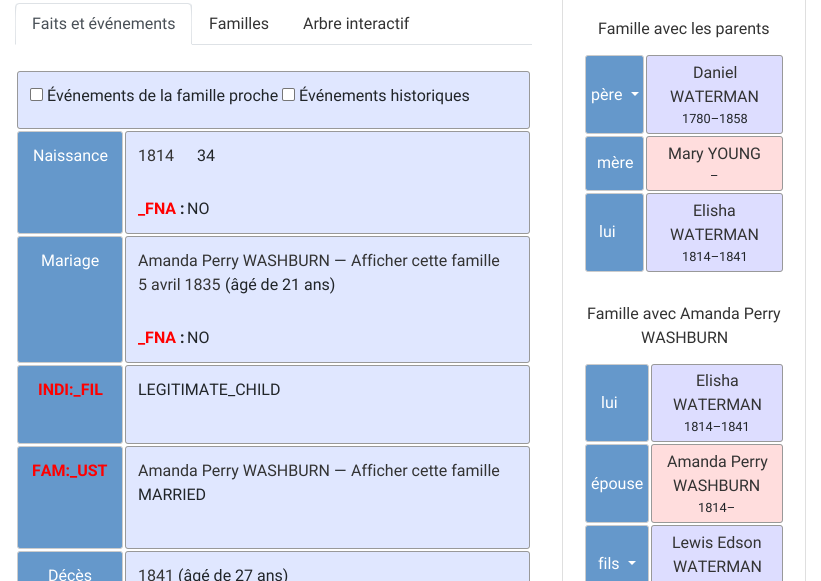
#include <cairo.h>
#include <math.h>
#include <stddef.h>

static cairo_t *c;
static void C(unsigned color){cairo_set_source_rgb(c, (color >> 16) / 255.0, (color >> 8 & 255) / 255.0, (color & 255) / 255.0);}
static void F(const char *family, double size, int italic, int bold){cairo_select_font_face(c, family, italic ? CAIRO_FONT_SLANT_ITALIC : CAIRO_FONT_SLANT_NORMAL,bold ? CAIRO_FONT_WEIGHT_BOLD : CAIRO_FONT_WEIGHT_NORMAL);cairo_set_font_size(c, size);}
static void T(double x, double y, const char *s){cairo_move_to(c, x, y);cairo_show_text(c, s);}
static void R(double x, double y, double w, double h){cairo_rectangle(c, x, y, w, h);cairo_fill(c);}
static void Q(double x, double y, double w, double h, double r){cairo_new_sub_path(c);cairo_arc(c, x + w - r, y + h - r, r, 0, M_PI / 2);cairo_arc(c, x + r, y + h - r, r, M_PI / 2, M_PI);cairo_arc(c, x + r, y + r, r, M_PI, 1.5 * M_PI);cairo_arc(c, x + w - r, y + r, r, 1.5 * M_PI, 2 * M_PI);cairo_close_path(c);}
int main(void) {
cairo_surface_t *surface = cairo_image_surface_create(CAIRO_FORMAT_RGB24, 821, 581);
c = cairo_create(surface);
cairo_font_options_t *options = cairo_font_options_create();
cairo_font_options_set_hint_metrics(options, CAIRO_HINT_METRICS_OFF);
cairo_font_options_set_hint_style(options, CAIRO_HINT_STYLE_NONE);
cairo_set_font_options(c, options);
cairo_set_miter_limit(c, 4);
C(0xffffff);
cairo_paint(c);
C(0xdee2e6);
R(192,44,340,1);
cairo_new_path(c);
cairo_move_to(c,19,3);
cairo_line_to(c,16,4);
cairo_line_to(c,17,5);
cairo_line_to(c,19,4);
cairo_line_to(c,188,4);
cairo_line_to(c,190,5);
cairo_line_to(c,191,4);
cairo_line_to(c,188,3);
cairo_close_path(c);
cairo_fill(c);
cairo_new_path(c);
cairo_move_to(c,192,45);
cairo_line_to(c,192,7);
cairo_curve_to(c,192,6,192,5,191,4);
cairo_line_to(c,190,5);
cairo_curve_to(c,192,7,191,39,191,44);
cairo_close_path(c);
cairo_fill(c);
C(0xffffff);
cairo_new_path(c);
cairo_move_to(c,192,45);
cairo_line_to(c,191,44);
cairo_line_to(c,16,44);
cairo_line_to(c,15,45);
cairo_close_path(c);
cairo_fill(c);
C(0xdee2e6);
cairo_new_path(c);
cairo_move_to(c,15,45);
cairo_line_to(c,16,44);
cairo_curve_to(c,16,39,15,7,17,5);
cairo_line_to(c,16,4);
cairo_line_to(c,15,7);
cairo_close_path(c);
cairo_fill(c);
F("Roboto",16,0,0);
C(0x495057);
T(32,29,"Faits et événements");
C(0x333333);
T(209,29,"Familles");
T(303,29,"Arbre interactif");
C(0xe0e7ff);
Q(17.5,71.5,512,57,2.5);
cairo_fill_preserve(c);
C(0x999999);
cairo_set_line_width(c,1);
cairo_stroke(c);
C(0xffffff);
Q(30.5,88.5,12,12,1.5);
cairo_fill_preserve(c);
C(0x767676);
cairo_stroke(c);
C(0x212529);
T(47,101,"Événements de la famille proche");
C(0xffffff);
Q(282.5,88.5,12,12,1.5);
cairo_fill_preserve(c);
C(0x767676);
cairo_stroke(c);
C(0x212529);
T(299,101,"Événements historiques");
C(0x6598cb);
Q(17.5,131.5,105,102,2.5);
cairo_fill_preserve(c);
C(0xcccccc);
cairo_stroke(c);
C(0xffffff);
T(33,161,"Naissance");
C(0xe0e7ff);
Q(125.5,131.5,404,102,2.5);
cairo_fill_preserve(c);
C(0x999999);
cairo_stroke(c);
C(0x333333);
T(138,161,"1814");
C(0x212529);
T(197,161,"34");
F("Roboto",16,0,1);
C(0xff0000);
T(138,214,"_FNA");
C(0x212529);
T(180,214,":");
F("Roboto",16,0,0);
T(187,214,"NO");
C(0x6598cb);
Q(17.5,236.5,105,126,2.5);
cairo_fill_preserve(c);
C(0xcccccc);
cairo_stroke(c);
C(0xffffff);
T(41,266,"Mariage");
C(0xe0e7ff);
Q(125.5,236.5,404,126,2.5);
cairo_fill_preserve(c);
C(0x999999);
cairo_stroke(c);
C(0x333333);
T(138,266,"Amanda Perry WASHBURN");
C(0x212529);
T(334,266,"—");
C(0x333333);
T(351,266,"Afficher cette famille");
T(138,290,"5 avril 1835");
C(0x212529);
T(225,290,"(âgé de 21 ans)");
F("Roboto",16,0,1);
C(0xff0000);
T(138,343,"_FNA");
C(0x212529);
T(180,343,":");
F("Roboto",16,0,0);
T(187,343,"NO");
C(0x6598cb);
Q(17.5,365.5,105,78,2.5);
cairo_fill_preserve(c);
C(0xcccccc);
cairo_stroke(c);
F("Roboto",16,0,1);
C(0xff0000);
T(38,395,"INDI:_FIL");
C(0xe0e7ff);
Q(125.5,365.5,404,78,2.5);
cairo_fill_preserve(c);
C(0x999999);
cairo_stroke(c);
F("Roboto",16,0,0);
C(0x212529);
T(138,395,"LEGITIMATE_CHILD");
C(0x6598cb);
Q(17.5,446.5,105,102,2.5);
cairo_fill_preserve(c);
C(0xcccccc);
cairo_stroke(c);
F("Roboto",16,0,1);
C(0xff0000);
T(32,476,"FAM:_UST");
C(0xe0e7ff);
Q(125.5,446.5,404,102,2.5);
cairo_fill_preserve(c);
C(0x999999);
cairo_stroke(c);
F("Roboto",16,0,0);
C(0x333333);
T(138,476,"Amanda Perry WASHBURN");
C(0x212529);
T(334,476,"—");
C(0x333333);
T(351,476,"Afficher cette famille");
C(0x212529);
T(138,500,"MARRIED");
C(0x6598cb);
Q(17.5,551.5,105,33,2.5);
cairo_fill_preserve(c);
C(0xcccccc);
cairo_stroke(c);
C(0xffffff);
T(48,581,"Décès");
C(0xe0e7ff);
Q(125.5,551.5,404,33,2.5);
cairo_fill_preserve(c);
C(0x999999);
cairo_stroke(c);
C(0x333333);
T(138,581,"1841");
C(0x212529);
T(178,581,"(âgé de 27 ans)");
C(0xdfdfdf);
cairo_new_path(c);
cairo_move_to(c,806,-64);
cairo_line_to(c,806,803);
cairo_line_to(c,805,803);
cairo_line_to(c,805,-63);
cairo_close_path(c);
cairo_fill(c);
cairo_new_path(c);
cairo_move_to(c,562,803);
cairo_line_to(c,562,-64);
cairo_line_to(c,563,-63);
cairo_line_to(c,563,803);
cairo_close_path(c);
cairo_fill(c);
C(0x333333);
T(598,34,"Famille avec les parents");
C(0x6598cb);
Q(585.5,55.5,58,78,2.5);
cairo_fill_preserve(c);
C(0xcccccc);
cairo_stroke(c);
C(0xffffff);
T(591,100,"père");
cairo_new_path(c);
cairo_move_to(c,631,92);
cairo_line_to(c,639,92);
cairo_line_to(c,635,96);
cairo_close_path(c);
cairo_fill(c);
C(0xddddff);
Q(646.5,55.5,136,78,2.5);
cairo_fill_preserve(c);
C(0x999999);
cairo_stroke(c);
C(0x333333);
T(693,78,"Daniel");
T(670,102,"WATERMAN");
F("Roboto",12.75,0,0);
C(0x212529);
T(682,123,"1780–1858");
C(0x6598cb);
Q(585.5,136.5,58,54,2.5);
cairo_fill_preserve(c);
C(0xcccccc);
cairo_stroke(c);
F("Roboto",16,0,0);
C(0xffffff);
T(597,168,"mère");
C(0xffdddd);
Q(646.5,136.5,136,54,2.5);
cairo_fill_preserve(c);
C(0x999999);
cairo_stroke(c);
C(0x333333);
T(668,159,"Mary YOUNG");
F("Roboto",12.75,0,0);
C(0x212529);
T(710,180,"–");
C(0x6598cb);
Q(585.5,193.5,58,78,2.5);
cairo_fill_preserve(c);
C(0xcccccc);
cairo_stroke(c);
F("Roboto",16,0,0);
C(0xffffff);
T(599,237,"lui");
C(0xddddff);
Q(646.5,193.5,136,78,2.5);
cairo_fill_preserve(c);
C(0x999999);
cairo_stroke(c);
C(0x333333);
T(693,216,"Elisha");
T(670,240,"WATERMAN");
F("Roboto",12.75,0,0);
C(0x212529);
T(682,261,"1814–1841");
F("Roboto",16,0,0);
C(0x333333);
T(587,319,"Famille avec Amanda Perry");
T(641,343,"WASHBURN");
C(0x6598cb);
Q(585.5,364.5,63,77,2.5);
cairo_fill_preserve(c);
C(0xcccccc);
cairo_stroke(c);
C(0xffffff);
T(601,408,"lui");
C(0xddddff);
Q(651.5,364.5,131,77,2.5);
cairo_fill_preserve(c);
C(0x999999);
cairo_stroke(c);
C(0x333333);
T(696,386,"Elisha");
T(673,410,"WATERMAN");
F("Roboto",12.75,0,0);
C(0x212529);
T(684,431,"1814–1841");
C(0x6598cb);
Q(585.5,444.5,63,78,2.5);
cairo_fill_preserve(c);
C(0xcccccc);
cairo_stroke(c);
F("Roboto",16,0,0);
C(0xffffff);
T(591,489,"épouse");
C(0xffdddd);
Q(651.5,444.5,131,78,2.5);
cairo_fill_preserve(c);
C(0x999999);
cairo_stroke(c);
C(0x333333);
T(667,467,"Amanda Perry");
T(673,491,"WASHBURN");
F("Roboto",12.75,0,0);
C(0x212529);
T(698,512,"1814–");
C(0x6598cb);
Q(585.5,525.5,63,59,2.5);
cairo_fill_preserve(c);
C(0xcccccc);
cairo_stroke(c);
F("Roboto",16,0,0);
C(0xffffff);
T(598,569,"fils");
cairo_new_path(c);
cairo_move_to(c,628,561);
cairo_line_to(c,636,561);
cairo_line_to(c,632,565);
cairo_close_path(c);
cairo_fill(c);
C(0xddddff);
Q(651.5,525.5,131,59,2.5);
cairo_fill_preserve(c);
C(0x999999);
cairo_stroke(c);
C(0x333333);
T(672,548,"Lewis Edson");
T(673,572,"WATERMAN");
cairo_surface_write_to_png(surface, "o.png");
cairo_font_options_destroy(options);
cairo_destroy(c);
cairo_surface_destroy(surface);
return 0;
}
